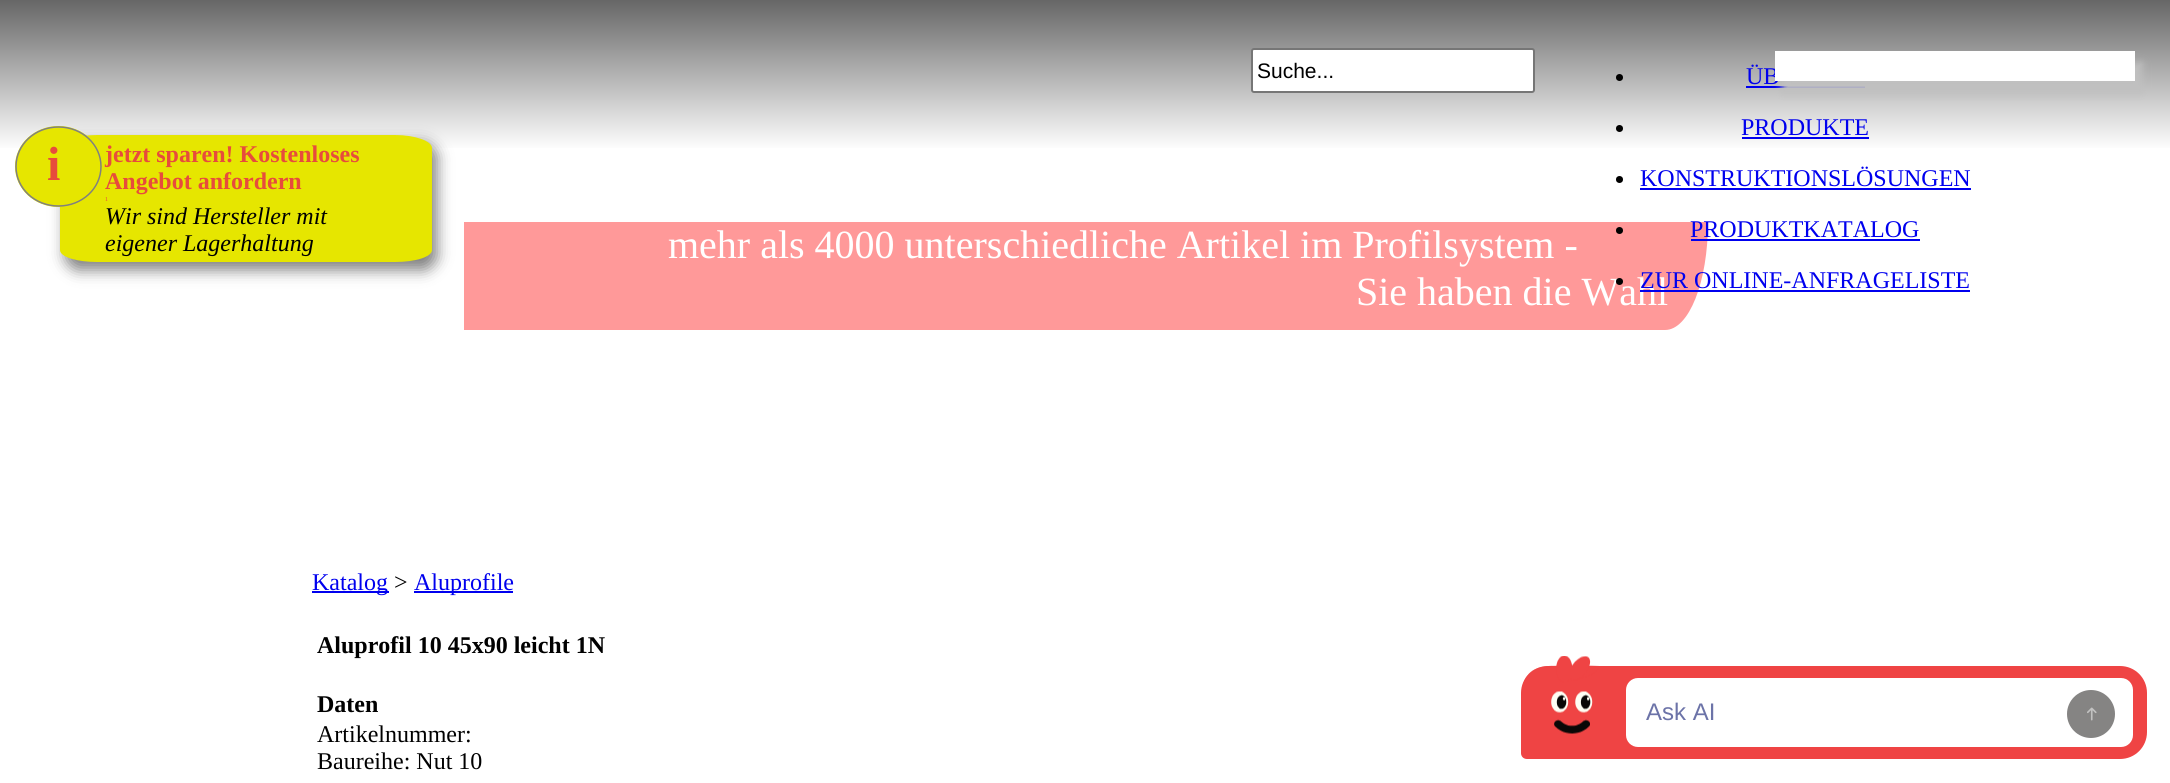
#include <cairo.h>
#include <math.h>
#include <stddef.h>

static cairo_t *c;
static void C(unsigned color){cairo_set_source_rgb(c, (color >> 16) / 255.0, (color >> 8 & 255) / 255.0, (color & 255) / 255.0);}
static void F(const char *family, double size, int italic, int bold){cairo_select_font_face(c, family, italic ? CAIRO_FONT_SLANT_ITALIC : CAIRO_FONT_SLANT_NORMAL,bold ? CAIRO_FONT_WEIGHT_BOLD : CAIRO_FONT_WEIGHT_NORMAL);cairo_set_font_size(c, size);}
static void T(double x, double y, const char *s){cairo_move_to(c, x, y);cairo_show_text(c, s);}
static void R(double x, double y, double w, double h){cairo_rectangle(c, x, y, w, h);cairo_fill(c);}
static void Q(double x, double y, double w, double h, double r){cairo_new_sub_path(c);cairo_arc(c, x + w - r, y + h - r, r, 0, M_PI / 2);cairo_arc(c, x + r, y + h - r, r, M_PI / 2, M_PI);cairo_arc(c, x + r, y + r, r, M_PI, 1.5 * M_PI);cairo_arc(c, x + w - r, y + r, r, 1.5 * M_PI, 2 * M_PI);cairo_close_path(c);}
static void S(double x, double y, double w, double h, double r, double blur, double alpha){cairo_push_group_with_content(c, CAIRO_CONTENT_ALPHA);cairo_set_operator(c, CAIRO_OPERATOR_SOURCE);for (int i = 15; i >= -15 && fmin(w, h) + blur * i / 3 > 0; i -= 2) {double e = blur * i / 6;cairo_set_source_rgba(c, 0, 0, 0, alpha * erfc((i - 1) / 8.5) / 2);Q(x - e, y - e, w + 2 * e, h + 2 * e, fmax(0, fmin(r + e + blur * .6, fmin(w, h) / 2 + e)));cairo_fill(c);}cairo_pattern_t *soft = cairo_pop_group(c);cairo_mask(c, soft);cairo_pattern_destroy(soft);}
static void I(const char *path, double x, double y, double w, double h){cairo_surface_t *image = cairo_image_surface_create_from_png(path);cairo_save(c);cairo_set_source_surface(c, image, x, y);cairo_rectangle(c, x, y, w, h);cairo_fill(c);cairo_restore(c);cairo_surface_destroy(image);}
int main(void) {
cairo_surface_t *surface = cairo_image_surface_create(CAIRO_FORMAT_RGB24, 2170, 783);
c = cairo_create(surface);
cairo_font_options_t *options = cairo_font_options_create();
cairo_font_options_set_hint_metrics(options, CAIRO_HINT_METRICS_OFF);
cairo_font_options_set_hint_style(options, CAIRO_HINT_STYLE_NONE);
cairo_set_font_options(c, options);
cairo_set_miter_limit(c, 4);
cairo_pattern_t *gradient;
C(0xffffff);
cairo_paint(c);
gradient = cairo_pattern_create_linear(1428,150,1428,0);
cairo_pattern_add_color_stop_rgba(gradient,0,1,1,1,1);
cairo_pattern_add_color_stop_rgba(gradient,1,0.4,0.4,0.4,1);
cairo_set_source(c,gradient);
cairo_pattern_destroy(gradient);
R(0,0,2170,148);
C(0x0000ee);
R(1746,86,119,2);
C(0xc0c0c0);
S(1782,63,360,30,0,4,1);
F("Liberation Serif",24,0,0);
C(0x0000ee);
T(1746,84,"ÜB");
C(0xffffff);
R(1775,51,360,30);
C(0x000000);
S(65,143,372,127,14,7.5,.5);
C(0xe6e600);
cairo_new_path(c);
cairo_move_to(c,97,135);
cairo_line_to(c,395,135);
cairo_curve_to(c,415,135,432,141,432,148);
cairo_line_to(c,432,250);
cairo_curve_to(c,432,257,415,262,395,262);
cairo_line_to(c,97,262);
cairo_curve_to(c,77,262,60,257,60,250);
cairo_line_to(c,60,148);
cairo_curve_to(c,60,141,77,135,97,135);
cairo_close_path(c);
cairo_fill(c);
cairo_new_path(c);
cairo_move_to(c,58.5,126);
cairo_curve_to(c,82.5,126,102,144,102,166.5);
cairo_curve_to(c,102,189,82.5,207,58.5,207);
cairo_curve_to(c,34.5,207,15,189,15,166.5);
cairo_curve_to(c,15,144,34.5,126,58.5,126);
cairo_close_path(c);
cairo_fill(c);
cairo_new_path(c);
cairo_move_to(c,58.5,127);
cairo_curve_to(c,82,127,101,144.5,101,166.5);
cairo_curve_to(c,101,188.5,82,206,58.5,206);
cairo_curve_to(c,35,206,16,188.5,16,166.5);
cairo_curve_to(c,16,144.5,35,127,58.5,127);
cairo_close_path(c);
C(0x808080);
cairo_set_line_width(c,1.5);
cairo_stroke(c);
F("Liberation Serif",48,0,1);
C(0xe74c3c);
T(47,180,"i");
F("Liberation Serif",24,0,1);
T(105,162,"jetzt sparen! Kostenloses");
T(105,189,"Angebot anfordern");
F("Liberation Serif",6,0,0);
T(105,201,"1");
F("Liberation Serif",24,1,0);
C(0x000000);
T(105,224,"Wir sind Hersteller mit");
T(105,251,"eigener Lagerhaltung");
C(0xffffff);
Q(1252,49,282,43,2);
cairo_fill_preserve(c);
C(0x767676);
cairo_set_line_width(c,2);
cairo_stroke(c);
F("Liberation Sans",21,0,0);
C(0x000000);
T(1257,78,"Suche...");
cairo_new_path(c);
cairo_arc(c,1619.5,77.5,3.5,0,2 * M_PI);
cairo_fill(c);
cairo_arc(c,1619.5,128.5,3.5,0,2 * M_PI);
cairo_fill(c);
F("Liberation Serif",24,0,0);
C(0x0000ee);
T(1741,135,"PRODUKTE");
R(1742,137,127,2);
C(0x000000);
cairo_new_path(c);
cairo_arc(c,1619.5,179.5,3.5,0,2 * M_PI);
cairo_fill(c);
C(0x0000ee);
T(1640,186,"KONSTRUKTIONSLÖSUNGEN");
R(1640,188,331,2);
C(0xff9999);
cairo_new_path(c);
cairo_move_to(c,464,222);
cairo_line_to(c,1708,222);
cairo_curve_to(c,1708,282,1689,330,1665,330);
cairo_line_to(c,464,330);
cairo_close_path(c);
cairo_fill(c);
C(0x000000);
cairo_arc(c,1619.5,230.5,3.5,0,2 * M_PI);
cairo_fill(c);
C(0x0000ee);
T(1690,237,"PRODUKTKATALOG");
R(1691,239,229,2);
F("Liberation Serif",40,0,0);
C(0xffffff);
T(1356,305,"Sie haben die Wahl");
C(0x000000);
cairo_new_path(c);
cairo_arc(c,1619.5,281.5,3.5,0,2 * M_PI);
cairo_fill(c);
F("Liberation Serif",24,0,0);
C(0x0000ee);
T(1640,288,"ZUR ONLINE-ANFRAGELISTE");
R(1640,290,330,2);
F("Liberation Serif",40,0,0);
C(0xffffff);
T(668,258,"mehr als 4000 unterschiedliche Artikel im Profilsystem -");
C(0x0000ee);
R(312,591,77,2);
F("Liberation Serif",24,0,0);
T(312,590,"Katalog");
C(0x000000);
T(394,590,">");
C(0x0000ee);
R(414,591,99,2);
T(414,590,"Aluprofile");
F("Liberation Serif",24,0,1);
C(0x000000);
T(317,653,"Aluprofil 10 45x90 leicht 1N");
T(317,712,"Daten");
F("Liberation Serif",24,0,0);
T(317,742,"Artikelnummer:");
T(317,769,"Baureihe: Nut 10");
C(0xef4444);
cairo_new_path(c);
cairo_move_to(c,1548,666);
cairo_line_to(c,2120,666);
cairo_curve_to(c,2135,666,2147,678,2147,693);
cairo_line_to(c,2147,732);
cairo_curve_to(c,2147,747,2135,759,2120,759);
cairo_line_to(c,1527,759);
cairo_curve_to(c,1523.5,759,1521,756.5,1521,753);
cairo_line_to(c,1521,693);
cairo_curve_to(c,1521,678,1533,666,1548,666);
cairo_close_path(c);
cairo_fill(c);
I("1.png",1521,656,78,99);
C(0xffffff);
Q(1626,678,507,69,12);
cairo_fill(c);
F("Liberation Sans",24,0,0);
C(0x6c73a8);
T(1646,720,"Ask AI");
C(0x858483);
cairo_new_path(c);
cairo_arc(c,2091,714,24,0,2 * M_PI);
cairo_fill(c);
I("2.png",2087,707,10,14);
cairo_surface_write_to_png(surface, "o.png");
cairo_font_options_destroy(options);
cairo_destroy(c);
cairo_surface_destroy(surface);
return 0;
}
